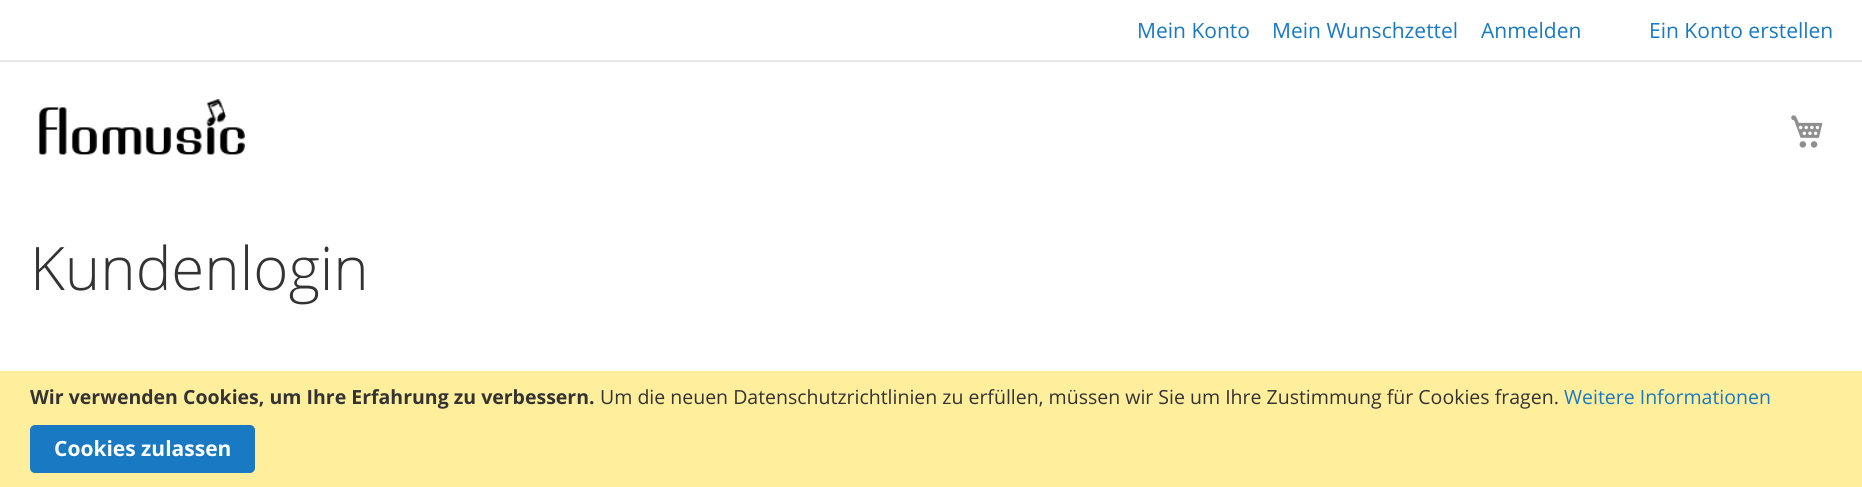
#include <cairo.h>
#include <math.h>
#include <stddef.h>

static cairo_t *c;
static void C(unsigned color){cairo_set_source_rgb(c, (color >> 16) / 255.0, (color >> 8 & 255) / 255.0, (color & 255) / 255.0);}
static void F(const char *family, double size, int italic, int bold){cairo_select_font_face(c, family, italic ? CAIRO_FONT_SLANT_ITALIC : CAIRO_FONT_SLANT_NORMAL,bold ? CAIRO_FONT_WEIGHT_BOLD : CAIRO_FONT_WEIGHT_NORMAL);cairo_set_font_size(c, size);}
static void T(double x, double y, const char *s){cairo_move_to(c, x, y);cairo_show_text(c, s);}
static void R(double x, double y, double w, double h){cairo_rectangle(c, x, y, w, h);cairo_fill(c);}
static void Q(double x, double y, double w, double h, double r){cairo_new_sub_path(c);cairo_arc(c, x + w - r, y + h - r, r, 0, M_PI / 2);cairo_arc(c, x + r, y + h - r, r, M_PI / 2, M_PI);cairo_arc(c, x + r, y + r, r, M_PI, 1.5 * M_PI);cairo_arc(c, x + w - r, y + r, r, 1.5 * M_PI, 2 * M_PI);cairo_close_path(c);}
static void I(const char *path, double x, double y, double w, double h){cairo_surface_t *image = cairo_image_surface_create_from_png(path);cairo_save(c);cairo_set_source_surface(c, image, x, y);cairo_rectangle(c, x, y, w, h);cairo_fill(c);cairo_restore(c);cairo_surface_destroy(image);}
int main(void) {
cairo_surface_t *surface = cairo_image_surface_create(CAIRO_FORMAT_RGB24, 1862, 487);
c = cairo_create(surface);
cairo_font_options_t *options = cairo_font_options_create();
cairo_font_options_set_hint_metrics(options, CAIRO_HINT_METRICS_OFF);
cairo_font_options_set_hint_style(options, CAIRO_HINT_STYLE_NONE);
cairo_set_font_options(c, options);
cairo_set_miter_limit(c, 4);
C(0xffffff);
cairo_paint(c);
C(0xe8e8e8);
R(0,60,1862,2);
F("Open Sans",21,0,0);
C(0x1979c3);
T(1137,38,"Mein Konto");
T(1272,38,"Mein Wunschzettel");
T(1481,38,"Anmelden");
T(1649,38,"Ein Konto erstellen");
I("1.png",38,99,208,56);
I("2.png",1791,115,32,33);
F("Open Sans Light",60,0,0);
C(0x333333);
T(30,290,"Kundenlogin");
C(0xffee9c);
R(0,371,1862,116);
F("Open Sans",19.5,0,1);
C(0x333333);
T(30,404,"Wir verwenden Cookies, um Ihre Erfahrung zu verbessern.");
F("Open Sans",19.5,0,0);
T(600,404,"Um die neuen Datenschutzrichtlinien zu erfüllen, müssen wir Sie um Ihre Zustimmung für Cookies fragen.");
C(0x1979c3);
T(1564,404,"Weitere Informationen");
Q(31,426,223,46,4);
cairo_fill_preserve(c);
cairo_stroke(c);
F("Open Sans",21,0,1);
C(0xffffff);
T(54,456,"Cookies zulassen");
cairo_surface_write_to_png(surface, "o.png");
cairo_font_options_destroy(options);
cairo_destroy(c);
cairo_surface_destroy(surface);
return 0;
}
